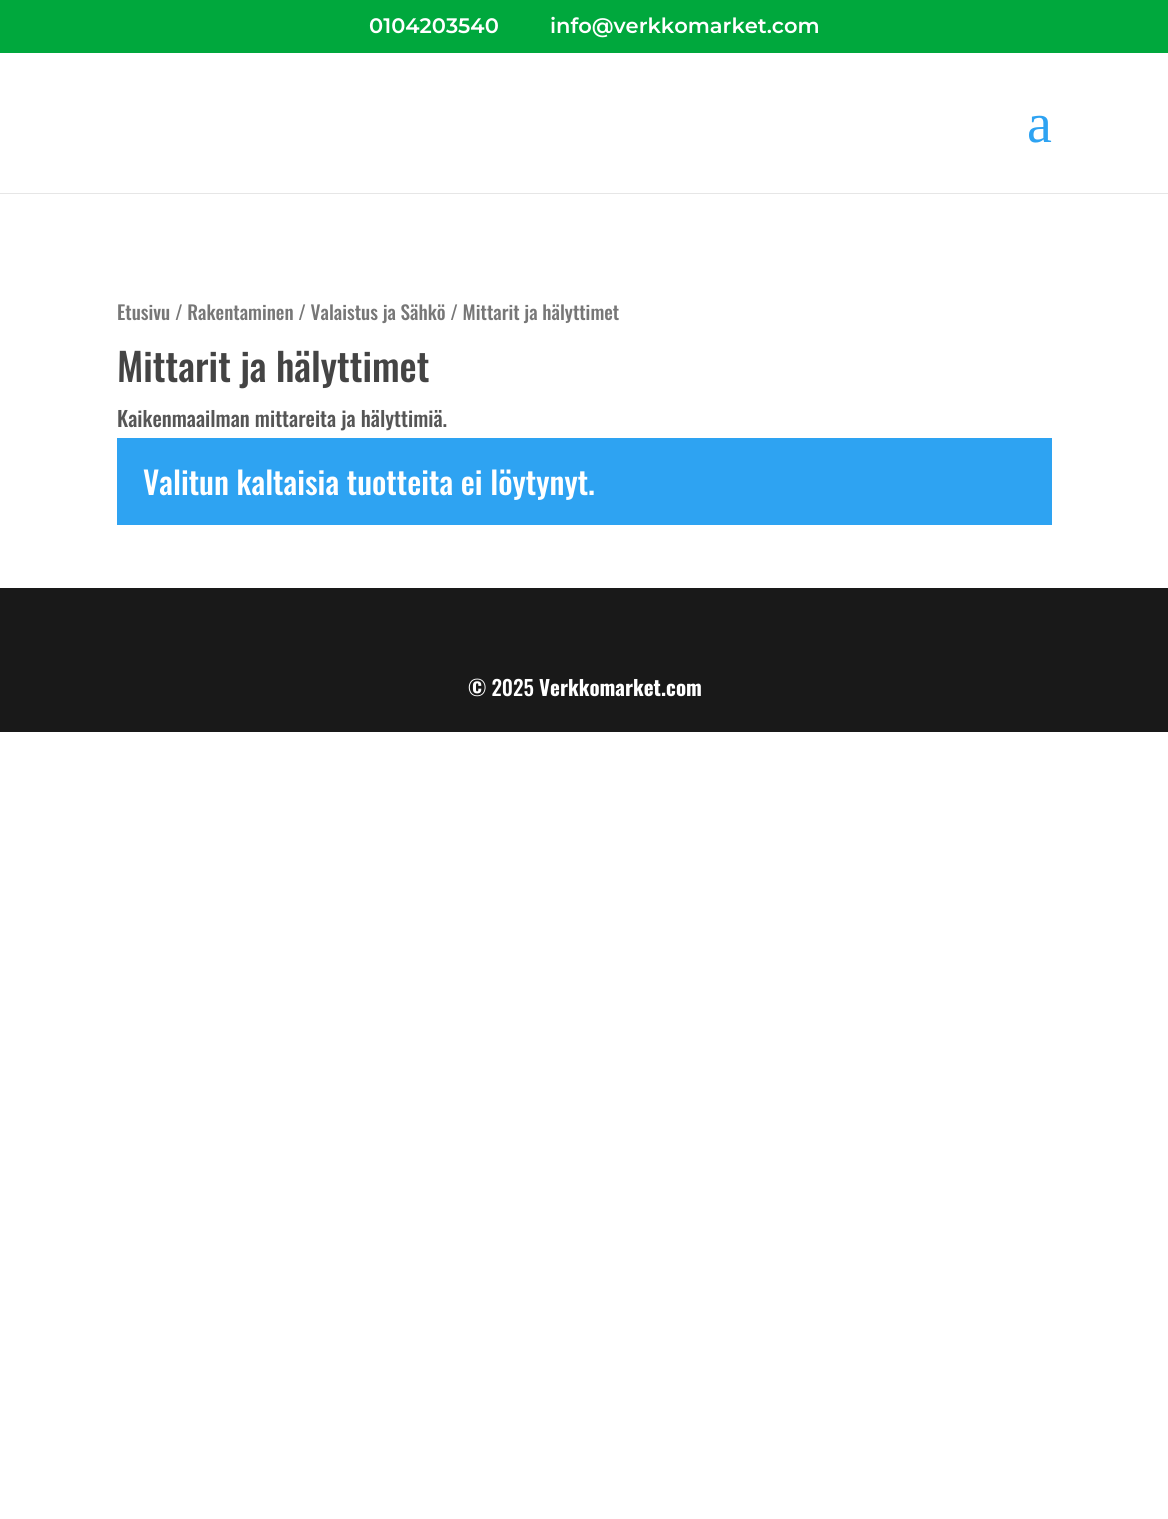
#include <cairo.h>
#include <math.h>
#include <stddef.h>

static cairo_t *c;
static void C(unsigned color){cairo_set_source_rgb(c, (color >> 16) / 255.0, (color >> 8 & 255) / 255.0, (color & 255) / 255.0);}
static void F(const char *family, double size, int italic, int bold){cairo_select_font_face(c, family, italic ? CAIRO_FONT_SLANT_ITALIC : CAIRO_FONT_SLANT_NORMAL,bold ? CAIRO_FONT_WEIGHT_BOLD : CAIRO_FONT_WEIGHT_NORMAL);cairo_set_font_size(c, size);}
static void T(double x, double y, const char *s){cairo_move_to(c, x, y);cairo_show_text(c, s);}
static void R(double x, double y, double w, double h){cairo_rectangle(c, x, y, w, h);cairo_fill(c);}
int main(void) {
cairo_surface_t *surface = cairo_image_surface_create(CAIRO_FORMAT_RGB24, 1168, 1519);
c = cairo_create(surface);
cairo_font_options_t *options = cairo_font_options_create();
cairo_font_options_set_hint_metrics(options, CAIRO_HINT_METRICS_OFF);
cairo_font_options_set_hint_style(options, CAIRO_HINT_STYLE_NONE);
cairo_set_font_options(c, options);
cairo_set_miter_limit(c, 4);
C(0xffffff);
cairo_paint(c);
C(0x00a83d);
R(0,0,1168,53);
F("Montserrat SemiBold",21,0,0);
C(0xffffff);
T(369,33,"0104203540");
T(550,33,"info@verkkomarket.com");
C(0xe6e6e6);
R(0,193,1168,1);
F("Liberation Serif",56,0,0);
C(0x2ea3f2);
T(1027,142,"a");
F("Oswald Medium",19.3,0,0);
C(0x777777);
T(117,320,"Etusivu / Rakentaminen / Valaistus ja Sähkö / Mittarit ja hälyttimet");
F("Oswald Medium",38.5,0,0);
C(0x444444);
T(117,382,"Mittarit ja hälyttimet");
F("Oswald Medium",21,0,0);
C(0x565656);
T(117,427,"Kaikenmaailman mittareita ja hälyttimiä.");
C(0x2ea3f2);
R(117,438,935,87);
F("Oswald Medium",31.5,0,0);
C(0xffffff);
T(143,495,"Valitun kaltaisia tuotteita ei löytynyt.");
C(0x191919);
R(0,588,1168,144);
F("Oswald Medium",21,0,0);
C(0xffffff);
T(468,696,"© 2025");
F("Oswald",21,0,1);
T(539,696,"Verkkomarket.com");
cairo_surface_write_to_png(surface, "o.png");
cairo_font_options_destroy(options);
cairo_destroy(c);
cairo_surface_destroy(surface);
return 0;
}
